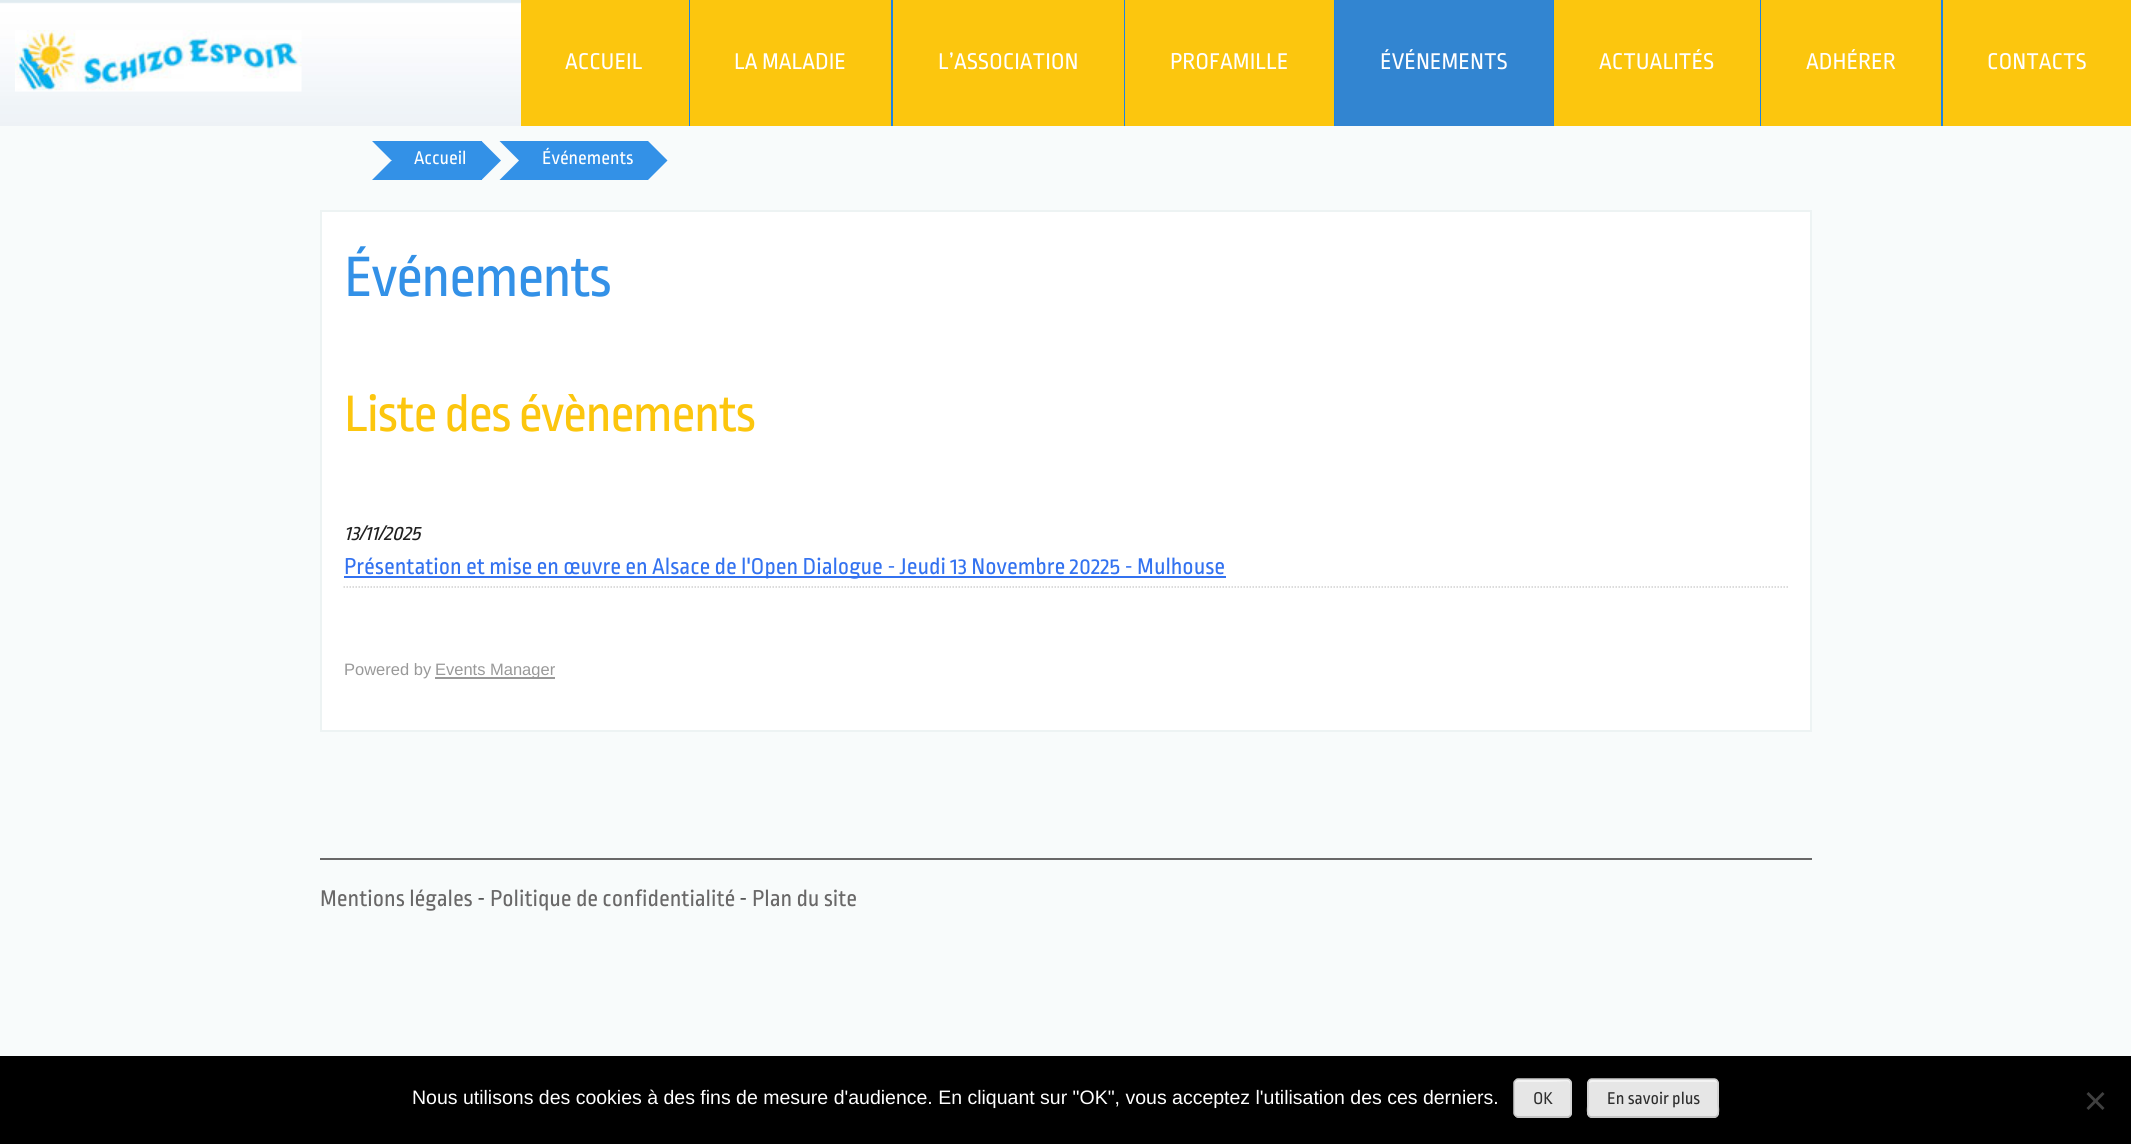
#include <cairo.h>
#include <math.h>
#include <stddef.h>

static cairo_t *c;
static void C(unsigned color){cairo_set_source_rgb(c, (color >> 16) / 255.0, (color >> 8 & 255) / 255.0, (color & 255) / 255.0);}
static void F(const char *family, double size, int italic, int bold){cairo_select_font_face(c, family, italic ? CAIRO_FONT_SLANT_ITALIC : CAIRO_FONT_SLANT_NORMAL,bold ? CAIRO_FONT_WEIGHT_BOLD : CAIRO_FONT_WEIGHT_NORMAL);cairo_set_font_size(c, size);}
static void T(double x, double y, const char *s){cairo_move_to(c, x, y);cairo_show_text(c, s);}
static void L(double x, double y, const char *s, double letter, double word){cairo_move_to(c, x, y);while (*s) {char ch[5] = {0};int n = 0;do ch[n++] = *s++; while ((*s & 0xC0) == 0x80);cairo_show_text(c, ch);cairo_rel_move_to(c, letter + word * (*ch == ' '), 0);}}
static void R(double x, double y, double w, double h){cairo_rectangle(c, x, y, w, h);cairo_fill(c);}
static void Q(double x, double y, double w, double h, double r){cairo_new_sub_path(c);cairo_arc(c, x + w - r, y + h - r, r, 0, M_PI / 2);cairo_arc(c, x + r, y + h - r, r, M_PI / 2, M_PI);cairo_arc(c, x + r, y + r, r, M_PI, 1.5 * M_PI);cairo_arc(c, x + w - r, y + r, r, 1.5 * M_PI, 2 * M_PI);cairo_close_path(c);}
static void I(const char *path, double x, double y, double w, double h){cairo_surface_t *image = cairo_image_surface_create_from_png(path);cairo_save(c);cairo_set_source_surface(c, image, x, y);cairo_rectangle(c, x, y, w, h);cairo_fill(c);cairo_restore(c);cairo_surface_destroy(image);}
int main(void) {
cairo_surface_t *surface = cairo_image_surface_create(CAIRO_FORMAT_RGB24, 2131, 1144);
c = cairo_create(surface);
cairo_font_options_t *options = cairo_font_options_create();
cairo_font_options_set_hint_metrics(options, CAIRO_HINT_METRICS_OFF);
cairo_font_options_set_hint_style(options, CAIRO_HINT_STYLE_NONE);
cairo_set_font_options(c, options);
cairo_set_miter_limit(c, 4);
C(0xf8fbfb);
cairo_paint(c);
I("1.png",0,0,521,126);
I("2.png",15,30,287,62);
C(0xfcc60e);
R(521,0,168,126);
F("Ropa Sans",24,0,0);
C(0xffffff);
T(565,69,"ACCUEIL");
C(0x1f84e0);
R(689,0,1,126);
C(0xfcc60e);
R(690,0,201,126);
C(0xffffff);
T(734,69,"LA MALADIE");
C(0x1f84e0);
R(891,0,2,126);
C(0xfcc60e);
R(893,0,231,126);
C(0xffffff);
T(938,69,"L’ASSOCIATION");
C(0x1f84e0);
R(1124,0,1,126);
C(0xfcc60e);
R(1125,0,209,126);
C(0xffffff);
T(1170,69,"PROFAMILLE");
C(0x1f84e0);
R(1334,0,1,126);
C(0x3285d1);
R(1335,0,218,126);
C(0xffffff);
T(1380,69,"ÉVÉNEMENTS");
C(0x1f84e0);
R(1553,0,1,126);
C(0xfcc60e);
R(1554,0,206,126);
C(0xffffff);
T(1599,69,"ACTUALITÉS");
C(0x1f84e0);
R(1760,0,1,126);
C(0xfcc60e);
R(1761,0,180,126);
C(0xffffff);
T(1806,69,"ADHÉRER");
C(0x1f84e0);
R(1941,0,2,126);
C(0xfcc60e);
R(1943,0,188,126);
C(0xffffff);
T(1987,69,"CONTACTS");
C(0x3391e7);
R(411,141,71,39);
cairo_new_path(c);
cairo_move_to(c,372,141);
cairo_line_to(c,411,141);
cairo_line_to(c,391.5,160.5);
cairo_close_path(c);
cairo_fill(c);
R(392,141,19,39);
cairo_new_path(c);
cairo_move_to(c,411,180);
cairo_line_to(c,372,180);
cairo_line_to(c,391.5,160.5);
cairo_close_path(c);
cairo_fill(c);
F("Ropa Sans",19.5,0,0);
C(0xffffff);
T(414,164,"Accueil");
C(0x3391e7);
cairo_new_path(c);
cairo_move_to(c,481.5,180);
cairo_line_to(c,481.5,141);
cairo_line_to(c,501,160.5);
cairo_close_path(c);
cairo_fill(c);
R(539,141,109,39);
cairo_new_path(c);
cairo_move_to(c,499.5,141);
cairo_line_to(c,538.5,141);
cairo_line_to(c,519,160.5);
cairo_close_path(c);
cairo_fill(c);
R(519,141,20,39);
cairo_new_path(c);
cairo_move_to(c,538.5,180);
cairo_line_to(c,499.5,180);
cairo_line_to(c,519,160.5);
cairo_close_path(c);
cairo_fill(c);
C(0xffffff);
T(542,164,"Événements");
C(0x3391e7);
cairo_new_path(c);
cairo_move_to(c,648,180);
cairo_line_to(c,648,141);
cairo_line_to(c,667.5,160.5);
cairo_close_path(c);
cairo_fill(c);
C(0xffffff);
cairo_rectangle(c,321,211,1490,520);
cairo_fill_preserve(c);
C(0xedf3f3);
cairo_stroke(c);
F("Ropa Sans",60,0,0);
C(0x3391e7);
L(344,296,"Événements",-1.5,0);
F("Ropa Sans",54,0,0);
C(0xfcc60e);
L(344,431,"Liste des évènements",-1.5,0);
cairo_new_path(c);
cairo_move_to(c,343.5,587);
cairo_line_to(c,1788,587);
C(0xd0d0d0);
cairo_set_line_width(c,1.5);
cairo_set_dash(c,(double[]){1.5,1.5},2,0);
cairo_stroke(c);
F("Ropa Sans",21.5,1,0);
C(0x212121);
T(344,540,"13/11/2025");
C(0x3372f0);
R(344,576,882,2);
F("Ropa Sans",24,0,0);
T(344,574,"Présentation et mise en œuvre en Alsace de l'Open Dialogue - Jeudi 13 Novembre 20225 - Mulhouse");
F("Liberation Sans",16.5,0,0);
C(0x999999);
T(344,675,"Powered by");
R(435,677,120,2);
T(435,675,"Events Manager");
C(0x696868);
R(320,858,1492,2);
F("Ropa Sans",24,0,0);
T(320,906,"Mentions légales");
C(0x404040);
T(477,906,"-");
C(0x696868);
T(490,906,"Politique de confidentialité");
C(0x404040);
T(739,906,"-");
C(0x696868);
T(752,906,"Plan du site");
C(0x000000);
R(0,1056,2131,88);
F("Liberation Sans",19.5,0,0);
C(0xffffff);
T(412,1104,"Nous utilisons des cookies à des fins de mesure d'audience. En cliquant sur \"OK\", vous acceptez l'utilisation des ces derniers.");
C(0xe6e6e6);
Q(1514,1079,58,39,5);
cairo_fill(c);
C(0xf3f3f3);
cairo_new_path(c);
cairo_move_to(c,1518,1082);
cairo_line_to(c,1551,1082);
cairo_curve_to(c,1572,1082,1570,1077,1570,1094);
cairo_line_to(c,1570,1115);
cairo_curve_to(c,1571,1115,1571,1114,1571,1113);
cairo_line_to(c,1571,1083);
cairo_curve_to(c,1571,1081,1570,1080,1568,1080);
cairo_line_to(c,1518,1080);
cairo_curve_to(c,1516,1080,1515,1081,1515,1083);
cairo_line_to(c,1515,1084);
cairo_curve_to(c,1515,1083,1516,1082,1518,1082);
cairo_close_path(c);
cairo_fill(c);
cairo_new_path(c);
cairo_move_to(c,1570,1115.5);
cairo_curve_to(c,1569.5,1116.5,1568.5,1117,1567.5,1117);
cairo_line_to(c,1518,1117);
cairo_curve_to(c,1517,1117,1516,1116.5,1515.5,1115.5);
C(0xbbbbbb);
cairo_set_dash(c,NULL,0,0);
cairo_stroke(c);
cairo_new_path(c);
cairo_move_to(c,1515.5,1115.5);
cairo_curve_to(c,1514.5,1115,1514,1114,1514,1113);
cairo_line_to(c,1514,1083);
cairo_curve_to(c,1514,1082,1514.5,1081,1515.5,1080.5);
cairo_curve_to(c,1516,1079.5,1517,1079,1518,1079);
cairo_line_to(c,1567.5,1079);
cairo_curve_to(c,1568.5,1079,1569.5,1079.5,1570,1080.5);
cairo_curve_to(c,1571,1081,1571,1082,1571,1083);
cairo_line_to(c,1571,1113);
cairo_curve_to(c,1571,1114,1571,1115,1570,1115.5);
C(0xcccccc);
cairo_stroke(c);
F("Ropa Sans",18,0,0);
C(0x2e2e2e);
T(1533,1104,"OK");
C(0xe6e6e6);
Q(1587,1079,132,39,5);
cairo_fill(c);
C(0xf3f3f3);
cairo_new_path(c);
cairo_move_to(c,1592,1082);
cairo_line_to(c,1714,1082);
cairo_curve_to(c,1716,1082,1718,1083,1718,1084);
cairo_curve_to(c,1718,1082,1717,1080,1715,1080);
cairo_line_to(c,1592,1080);
cairo_curve_to(c,1590,1080,1589,1081,1589,1083);
cairo_close_path(c);
cairo_fill(c);
cairo_new_path(c);
cairo_move_to(c,1717,1115.5);
cairo_curve_to(c,1716.5,1116.5,1715.5,1117,1714.5,1117);
cairo_line_to(c,1591.5,1117);
cairo_curve_to(c,1590.5,1117,1589.5,1116.5,1589,1115.5);
C(0xbbbbbb);
cairo_stroke(c);
cairo_new_path(c);
cairo_move_to(c,1589,1115.5);
cairo_curve_to(c,1586.5,1113,1588,1105.5,1588,1103);
cairo_line_to(c,1588,1088);
cairo_curve_to(c,1588,1085,1587,1079.5,1591.5,1079);
cairo_line_to(c,1714.5,1079);
cairo_curve_to(c,1719,1079.5,1718,1085,1718,1088);
cairo_line_to(c,1718,1103);
cairo_curve_to(c,1718,1105.5,1719.5,1113,1717,1115.5);
C(0xcccccc);
cairo_stroke(c);
C(0x2e2e2e);
T(1607,1104,"En savoir plus");
C(0x404040);
cairo_new_path(c);
cairo_move_to(c,2102.5,1092);
cairo_line_to(c,2104.5,1094);
cairo_line_to(c,2088.5,1110);
cairo_line_to(c,2086.5,1108);
cairo_close_path(c);
cairo_fill(c);
cairo_new_path(c);
cairo_move_to(c,2086.5,1094);
cairo_line_to(c,2088.5,1092);
cairo_line_to(c,2104.5,1108);
cairo_line_to(c,2102.5,1110);
cairo_close_path(c);
cairo_fill(c);
cairo_surface_write_to_png(surface, "o.png");
cairo_font_options_destroy(options);
cairo_destroy(c);
cairo_surface_destroy(surface);
return 0;
}
